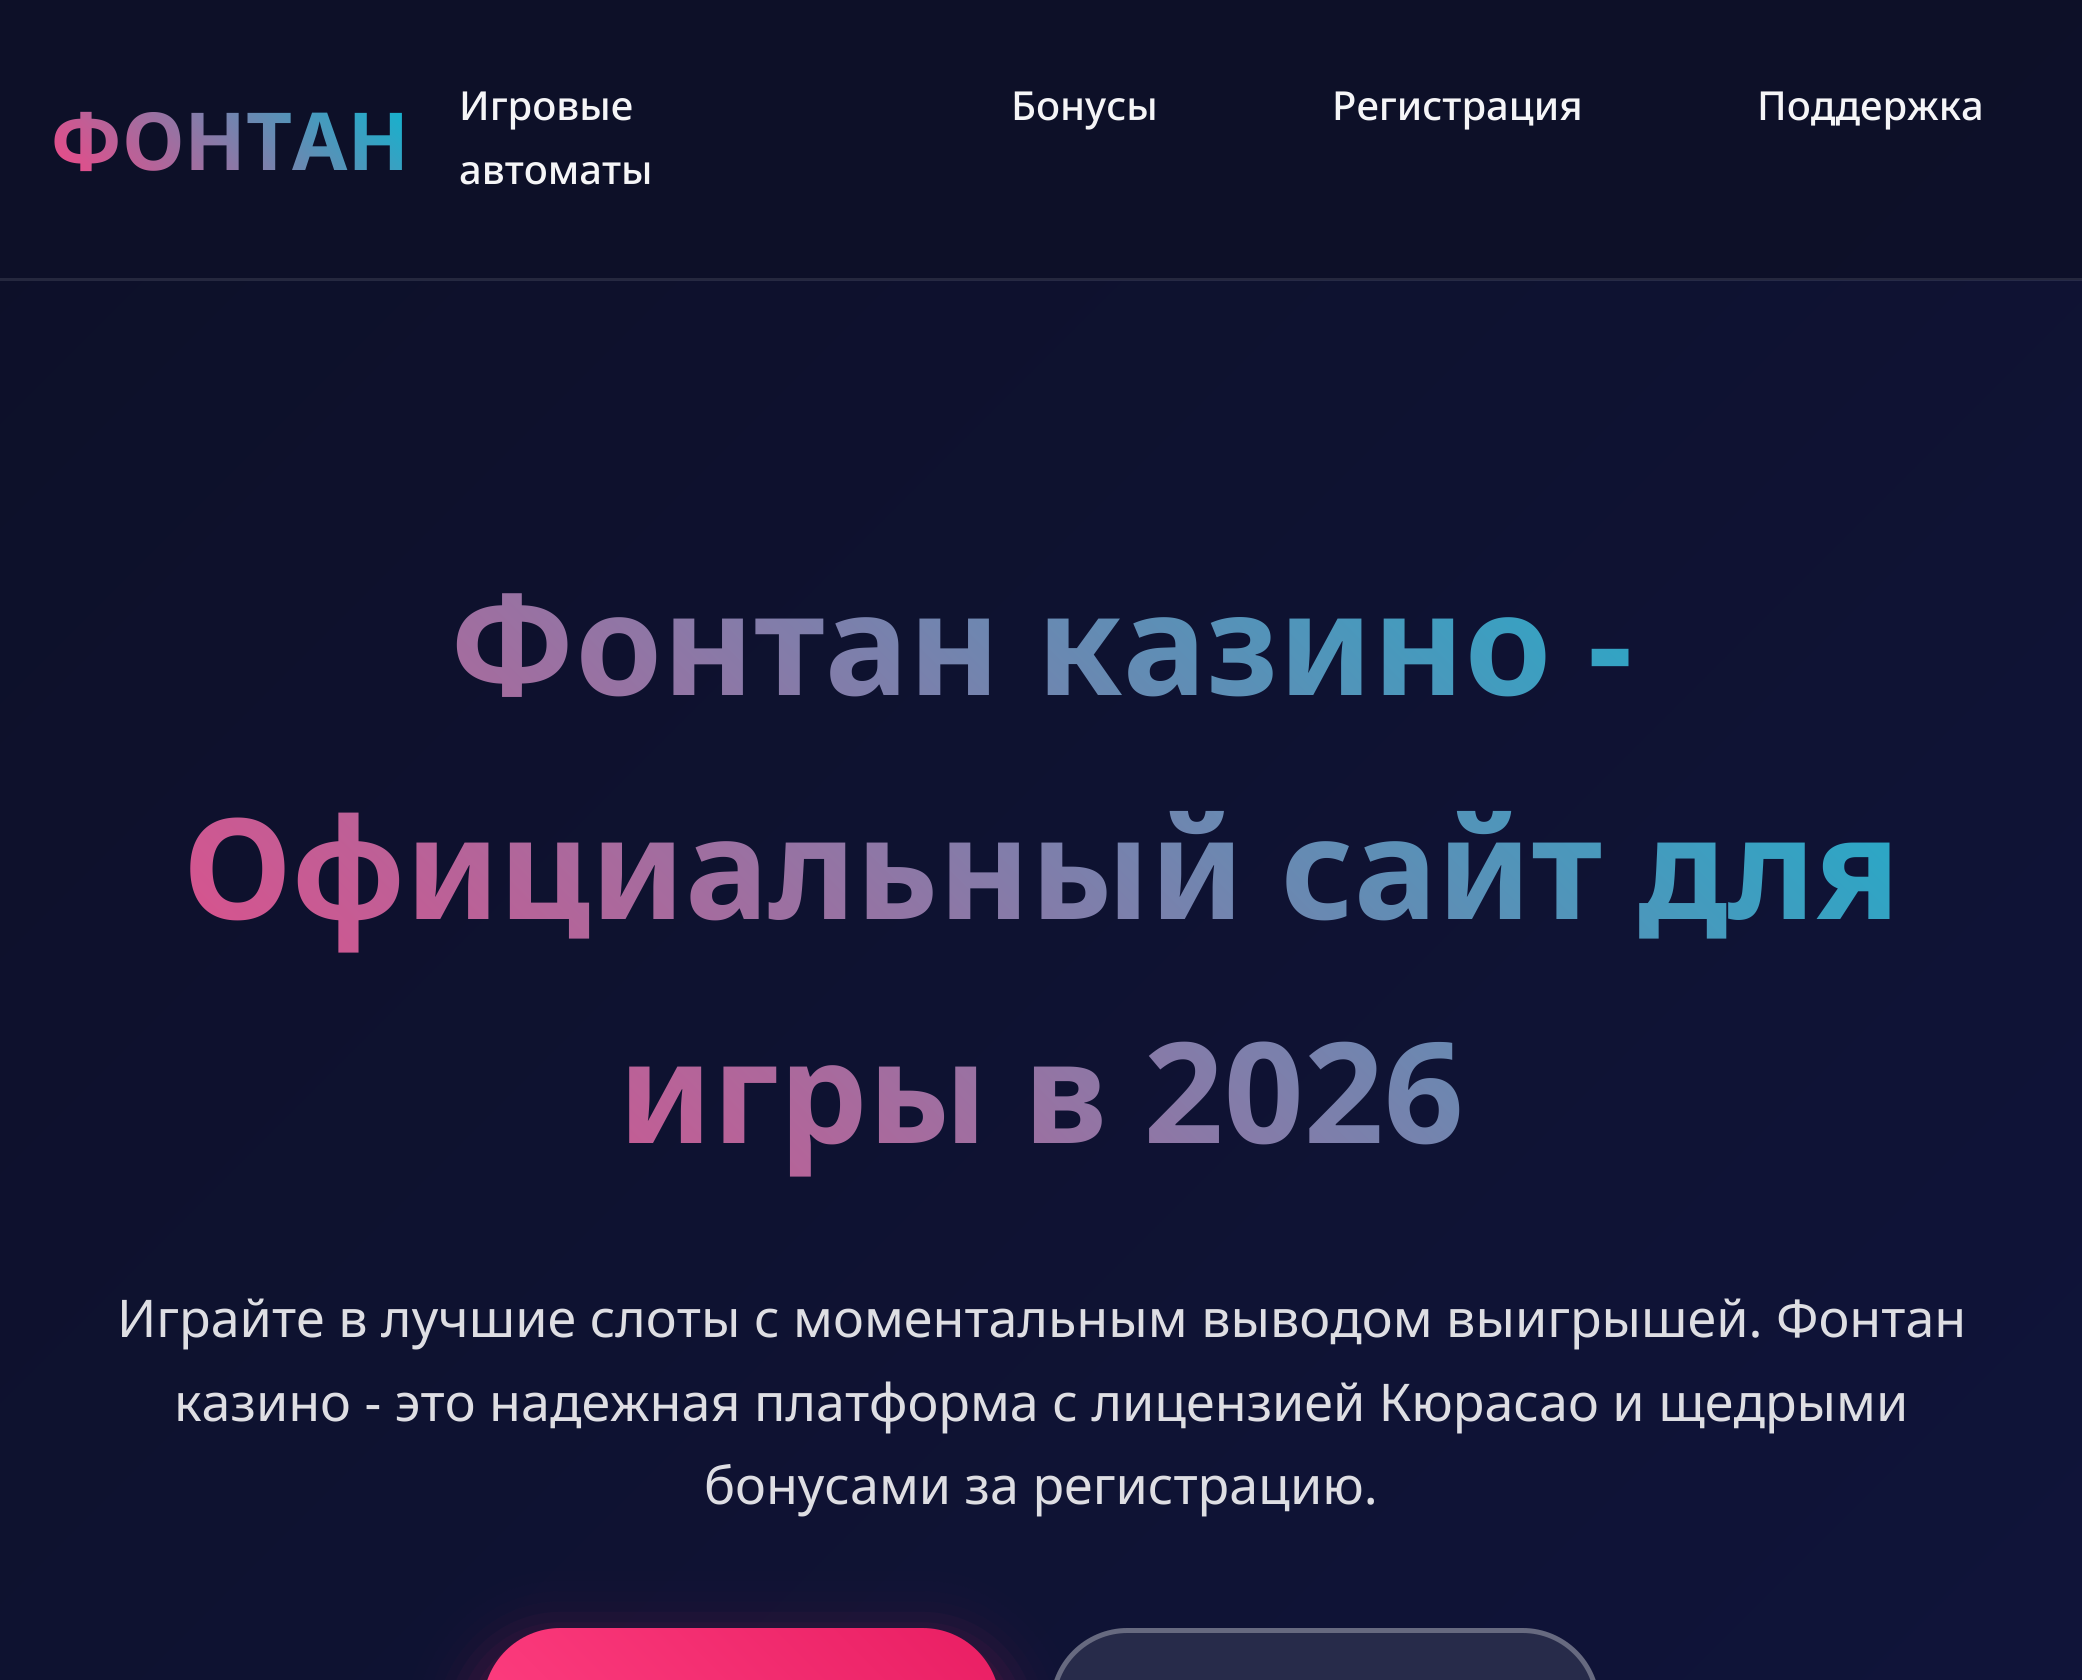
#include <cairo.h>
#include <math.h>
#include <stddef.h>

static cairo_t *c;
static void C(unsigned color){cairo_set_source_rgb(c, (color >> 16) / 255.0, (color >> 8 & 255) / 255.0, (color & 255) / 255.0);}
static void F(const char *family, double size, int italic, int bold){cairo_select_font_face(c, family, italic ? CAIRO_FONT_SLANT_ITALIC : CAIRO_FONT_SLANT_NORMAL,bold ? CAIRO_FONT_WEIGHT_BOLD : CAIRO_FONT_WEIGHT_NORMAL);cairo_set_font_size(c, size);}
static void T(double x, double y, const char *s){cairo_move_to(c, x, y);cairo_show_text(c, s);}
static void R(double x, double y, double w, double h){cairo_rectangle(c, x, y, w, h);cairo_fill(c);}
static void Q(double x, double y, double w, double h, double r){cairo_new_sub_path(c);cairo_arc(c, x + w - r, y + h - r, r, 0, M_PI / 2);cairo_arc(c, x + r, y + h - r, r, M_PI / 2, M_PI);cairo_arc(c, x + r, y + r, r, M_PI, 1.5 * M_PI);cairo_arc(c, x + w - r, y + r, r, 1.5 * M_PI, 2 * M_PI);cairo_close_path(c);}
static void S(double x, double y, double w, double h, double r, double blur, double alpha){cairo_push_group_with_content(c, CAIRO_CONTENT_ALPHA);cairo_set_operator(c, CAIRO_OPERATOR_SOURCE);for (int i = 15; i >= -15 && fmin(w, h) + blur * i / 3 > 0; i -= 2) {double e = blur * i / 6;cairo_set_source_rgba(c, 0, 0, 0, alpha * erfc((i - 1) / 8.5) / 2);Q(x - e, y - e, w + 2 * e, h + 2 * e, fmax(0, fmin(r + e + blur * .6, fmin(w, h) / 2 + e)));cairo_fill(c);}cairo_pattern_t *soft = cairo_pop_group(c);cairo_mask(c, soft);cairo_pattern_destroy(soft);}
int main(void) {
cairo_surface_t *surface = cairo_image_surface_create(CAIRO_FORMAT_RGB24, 2082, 1680);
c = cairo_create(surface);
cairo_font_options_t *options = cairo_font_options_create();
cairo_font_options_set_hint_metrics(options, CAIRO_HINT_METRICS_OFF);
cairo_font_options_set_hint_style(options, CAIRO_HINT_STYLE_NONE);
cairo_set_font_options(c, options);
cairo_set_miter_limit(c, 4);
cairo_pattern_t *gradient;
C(0xffffff);
cairo_paint(c);
gradient = cairo_pattern_create_linear(-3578,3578,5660,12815);
cairo_pattern_add_color_stop_rgba(gradient,0,0.051,0.063,0.157,1);
cairo_pattern_add_color_stop_rgba(gradient,1,0.102,0.137,0.494,1);
cairo_set_source(c,gradient);
cairo_pattern_destroy(gradient);
R(0,281,2082,1399);
gradient = cairo_pattern_create_linear(-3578,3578,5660,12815);
cairo_pattern_add_color_stop_rgba(gradient,0,0.145,0.157,0.243,1);
cairo_pattern_add_color_stop_rgba(gradient,1,0.192,0.224,0.545,1);
cairo_set_source(c,gradient);
cairo_pattern_destroy(gradient);
R(0,280,2082,1);
gradient = cairo_pattern_create_linear(-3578,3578,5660,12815);
cairo_pattern_add_color_stop_rgba(gradient,0,0.051,0.063,0.157,1);
cairo_pattern_add_color_stop_rgba(gradient,1,0.055,0.067,0.173,1);
cairo_set_source(c,gradient);
cairo_pattern_destroy(gradient);
R(0,0,2082,278);
gradient = cairo_pattern_create_linear(-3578,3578,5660,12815);
cairo_pattern_add_color_stop_rgba(gradient,0,0.145,0.157,0.243,1);
cairo_pattern_add_color_stop_rgba(gradient,1,0.149,0.161,0.255,1);
cairo_set_source(c,gradient);
cairo_pattern_destroy(gradient);
R(0,278,2082,2);
F("Noto Sans",80,0,1);
gradient = cairo_pattern_create_linear(108,261,351,17);
cairo_pattern_add_color_stop_rgba(gradient,0,1,0.251,0.506,1);
cairo_pattern_add_color_stop_rgba(gradient,1,0,0.737,0.831,1);
cairo_set_source(c,gradient);
cairo_pattern_destroy(gradient);
T(50,170,"ФОНТАН");
F("Noto Sans Medium",40,0,0);
C(0xf5f5f7);
T(459,120,"Игровые");
T(459,184,"автоматы");
T(1011,120,"Бонусы");
T(1332,120,"Регистрация");
T(1757,120,"Поддержка");
F("Noto Sans",140,0,1);
gradient = cairo_pattern_create_linear(378,1530,1705,203);
cairo_pattern_add_color_stop_rgba(gradient,0,1,0.251,0.506,1);
cairo_pattern_add_color_stop_rgba(gradient,1,0,0.737,0.831,1);
cairo_set_source(c,gradient);
cairo_pattern_destroy(gradient);
T(449,695,"Фонтан казино -");
T(183,919,"Официальный сайт для");
T(618,1143,"игры в 2026");
F("Noto Sans",52,0,0);
C(0xdedee3);
T(117,1337,"Играйте в лучшие слоты с моментальным выводом выигрышей. Фонтан");
T(174,1421,"казино - это надежная платформа с лицензией Кюрасао и щедрыми");
T(704,1504,"бонусами за регистрацию.");
C(0xe91e63);
S(483,1648,517,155,77.5,31,.4);
gradient = cairo_pattern_create_linear(573,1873,909,1537);
cairo_pattern_add_color_stop_rgba(gradient,0,1,0.251,0.506,1);
cairo_pattern_add_color_stop_rgba(gradient,1,0.914,0.118,0.388,1);
cairo_set_source(c,gradient);
cairo_pattern_destroy(gradient);
Q(483,1628,517,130,77.5);
cairo_fill(c);
C(0x272b4a);
Q(1050,1628,550,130,77.5);
cairo_fill(c);
Q(1052.5,1630.5,545,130,75);
cairo_set_source_rgba(c,1,1,1,0.3);
cairo_set_line_width(c,5);
cairo_stroke(c);
cairo_surface_write_to_png(surface, "o.png");
cairo_font_options_destroy(options);
cairo_destroy(c);
cairo_surface_destroy(surface);
return 0;
}
